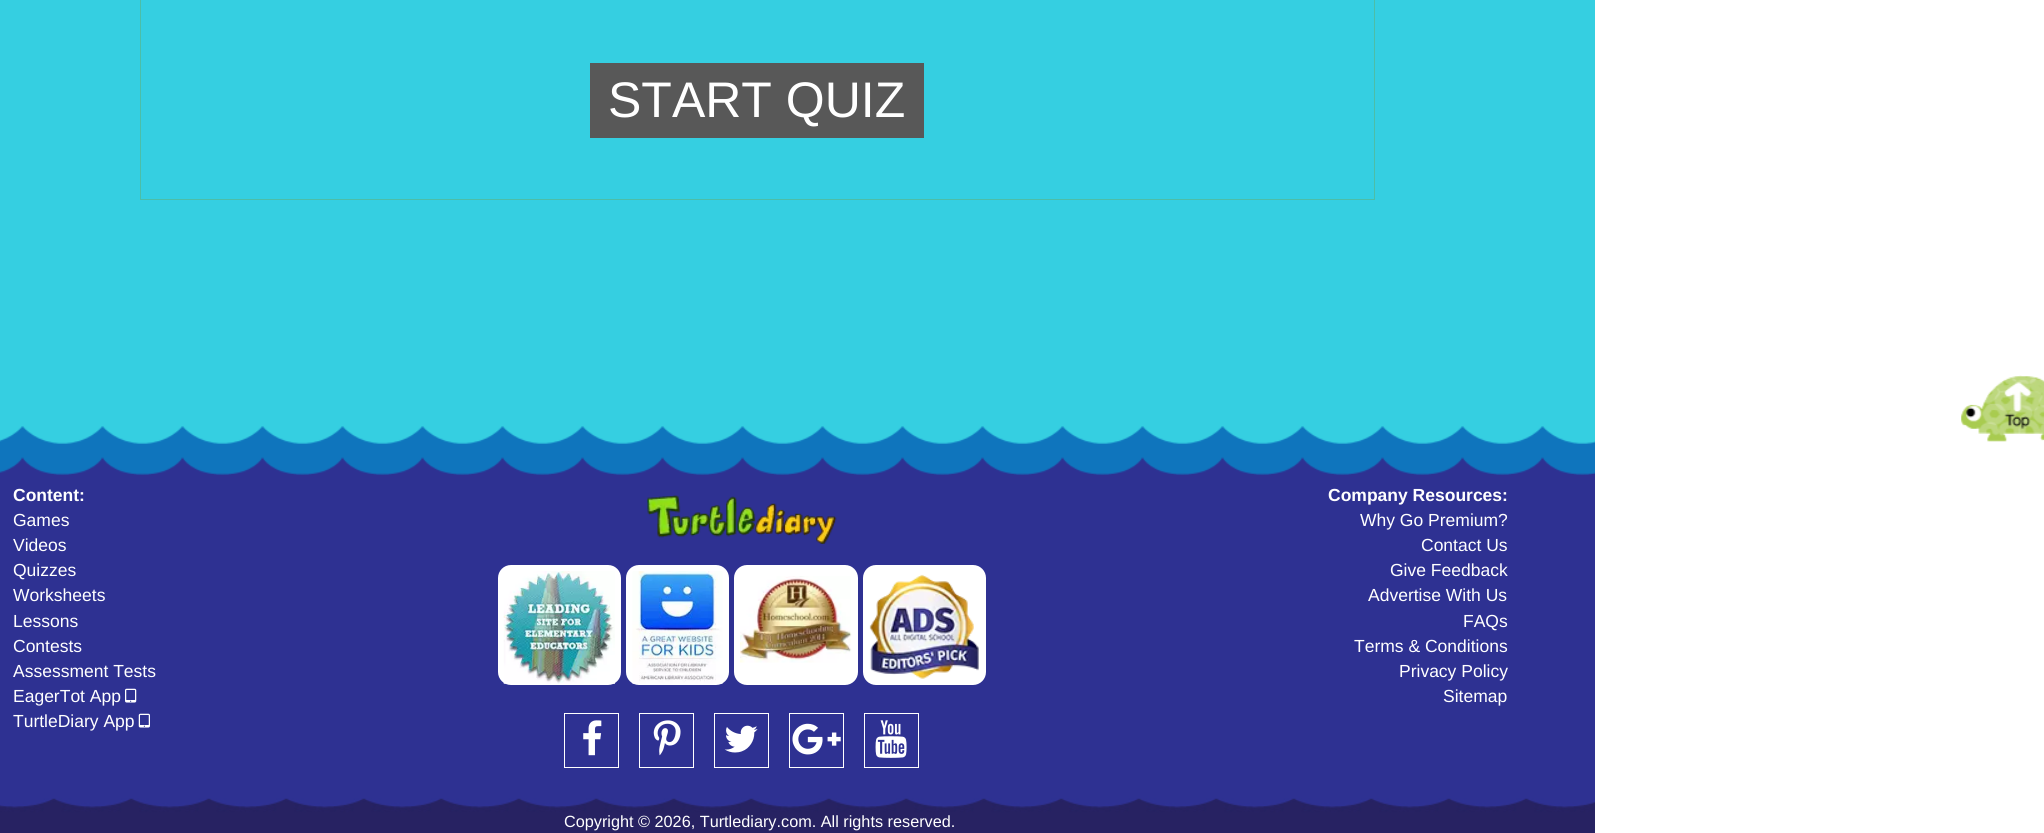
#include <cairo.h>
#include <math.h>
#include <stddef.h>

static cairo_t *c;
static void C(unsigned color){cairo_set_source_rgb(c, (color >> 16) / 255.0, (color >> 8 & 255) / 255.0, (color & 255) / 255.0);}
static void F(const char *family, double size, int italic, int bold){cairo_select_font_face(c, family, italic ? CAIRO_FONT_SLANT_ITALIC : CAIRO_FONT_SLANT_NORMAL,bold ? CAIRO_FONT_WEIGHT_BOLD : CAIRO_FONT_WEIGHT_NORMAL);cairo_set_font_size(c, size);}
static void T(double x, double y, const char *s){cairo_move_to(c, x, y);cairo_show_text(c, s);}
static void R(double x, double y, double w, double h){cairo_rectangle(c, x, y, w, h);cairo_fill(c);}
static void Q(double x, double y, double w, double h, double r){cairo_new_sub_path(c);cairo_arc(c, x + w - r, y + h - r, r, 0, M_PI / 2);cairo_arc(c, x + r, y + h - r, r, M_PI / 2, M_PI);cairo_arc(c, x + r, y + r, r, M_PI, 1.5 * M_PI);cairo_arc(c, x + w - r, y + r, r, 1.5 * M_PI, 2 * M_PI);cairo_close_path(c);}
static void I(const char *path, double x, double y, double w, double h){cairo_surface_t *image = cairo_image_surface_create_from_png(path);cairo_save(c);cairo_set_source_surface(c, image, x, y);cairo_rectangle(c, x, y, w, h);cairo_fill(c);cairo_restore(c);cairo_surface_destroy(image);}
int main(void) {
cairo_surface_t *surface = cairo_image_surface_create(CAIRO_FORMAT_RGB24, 2044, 833);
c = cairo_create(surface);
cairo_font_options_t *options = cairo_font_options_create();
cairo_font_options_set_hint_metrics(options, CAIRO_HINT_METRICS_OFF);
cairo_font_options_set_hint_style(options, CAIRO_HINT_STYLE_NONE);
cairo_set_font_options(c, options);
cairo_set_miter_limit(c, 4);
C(0x35cfe1);
cairo_paint(c);
cairo_rectangle(c,140.5,-.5,1234,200);
C(0x4cbea7);
cairo_set_line_width(c,1);
cairo_stroke(c);
C(0x585858);
R(590,63,334,75);
F("Liberation Sans",50,0,0);
C(0xffffff);
T(608,117,"START QUIZ");
R(1595,0,449,833);
I("1.png",1961,375,83,67);
C(0x2e3192);
R(0,457,1595,342);
I("2.png",0,798,1595,35);
I("3.png",0,426,1595,49);
F("Liberation Sans",17.5,0,1);
C(0xffffff);
T(13,501,"Content:");
F("Liberation Sans",17.5,0,0);
T(13,526,"Games");
T(13,551,"Videos");
T(13,576,"Quizzes");
T(13,601,"Worksheets");
T(13,627,"Lessons");
T(13,652,"Contests");
T(13,677,"Assessment Tests");
T(13,702,"EagerTot App");
I("4.png",125,688,12,15);
T(13,727,"TurtleDiary App");
I("5.png",138,713,12,15);
I("6.png",647,495,190,49);
Q(498,565,123,120,13);
cairo_fill(c);
I("7.png",503,571,112,113);
Q(626,565,103,120,13);
cairo_fill(c);
I("8.png",632,571,91,113);
Q(734,565,124,120,13);
cairo_fill(c);
I("9.png",740,576,112,87);
Q(863,565,123,120,13);
cairo_fill(c);
I("10.png",869,574,110,105);
cairo_rectangle(c,564.5,713.5,54,54);
cairo_stroke(c);
I("11.png",583,720,19,36);
cairo_rectangle(c,639.5,713.5,54,54);
cairo_stroke(c);
I("12.png",653,720,28,36);
cairo_rectangle(c,714.5,713.5,54,54);
cairo_stroke(c);
I("13.png",724,725,34,28);
cairo_rectangle(c,789.5,713.5,54,54);
cairo_stroke(c);
I("14.png",792,723,49,32);
cairo_rectangle(c,864.5,713.5,54,54);
cairo_stroke(c);
I("15.png",875,720,32,38);
F("Liberation Sans",17.5,0,1);
T(1328,501,"Company Resources:");
F("Liberation Sans",17.5,0,0);
T(1360,526,"Why Go Premium?");
T(1421,551,"Contact Us");
T(1390,576,"Give Feedback");
T(1368,601,"Advertise With Us");
T(1463,627,"FAQs");
T(1354,652,"Terms & Conditions");
T(1399,677,"Privacy Policy");
T(1443,702,"Sitemap");
F("Liberation Sans",16.25,0,0);
T(564,827,"Copyright © 2026, Turtlediary.com. All rights reserved.");
cairo_surface_write_to_png(surface, "o.png");
cairo_font_options_destroy(options);
cairo_destroy(c);
cairo_surface_destroy(surface);
return 0;
}
